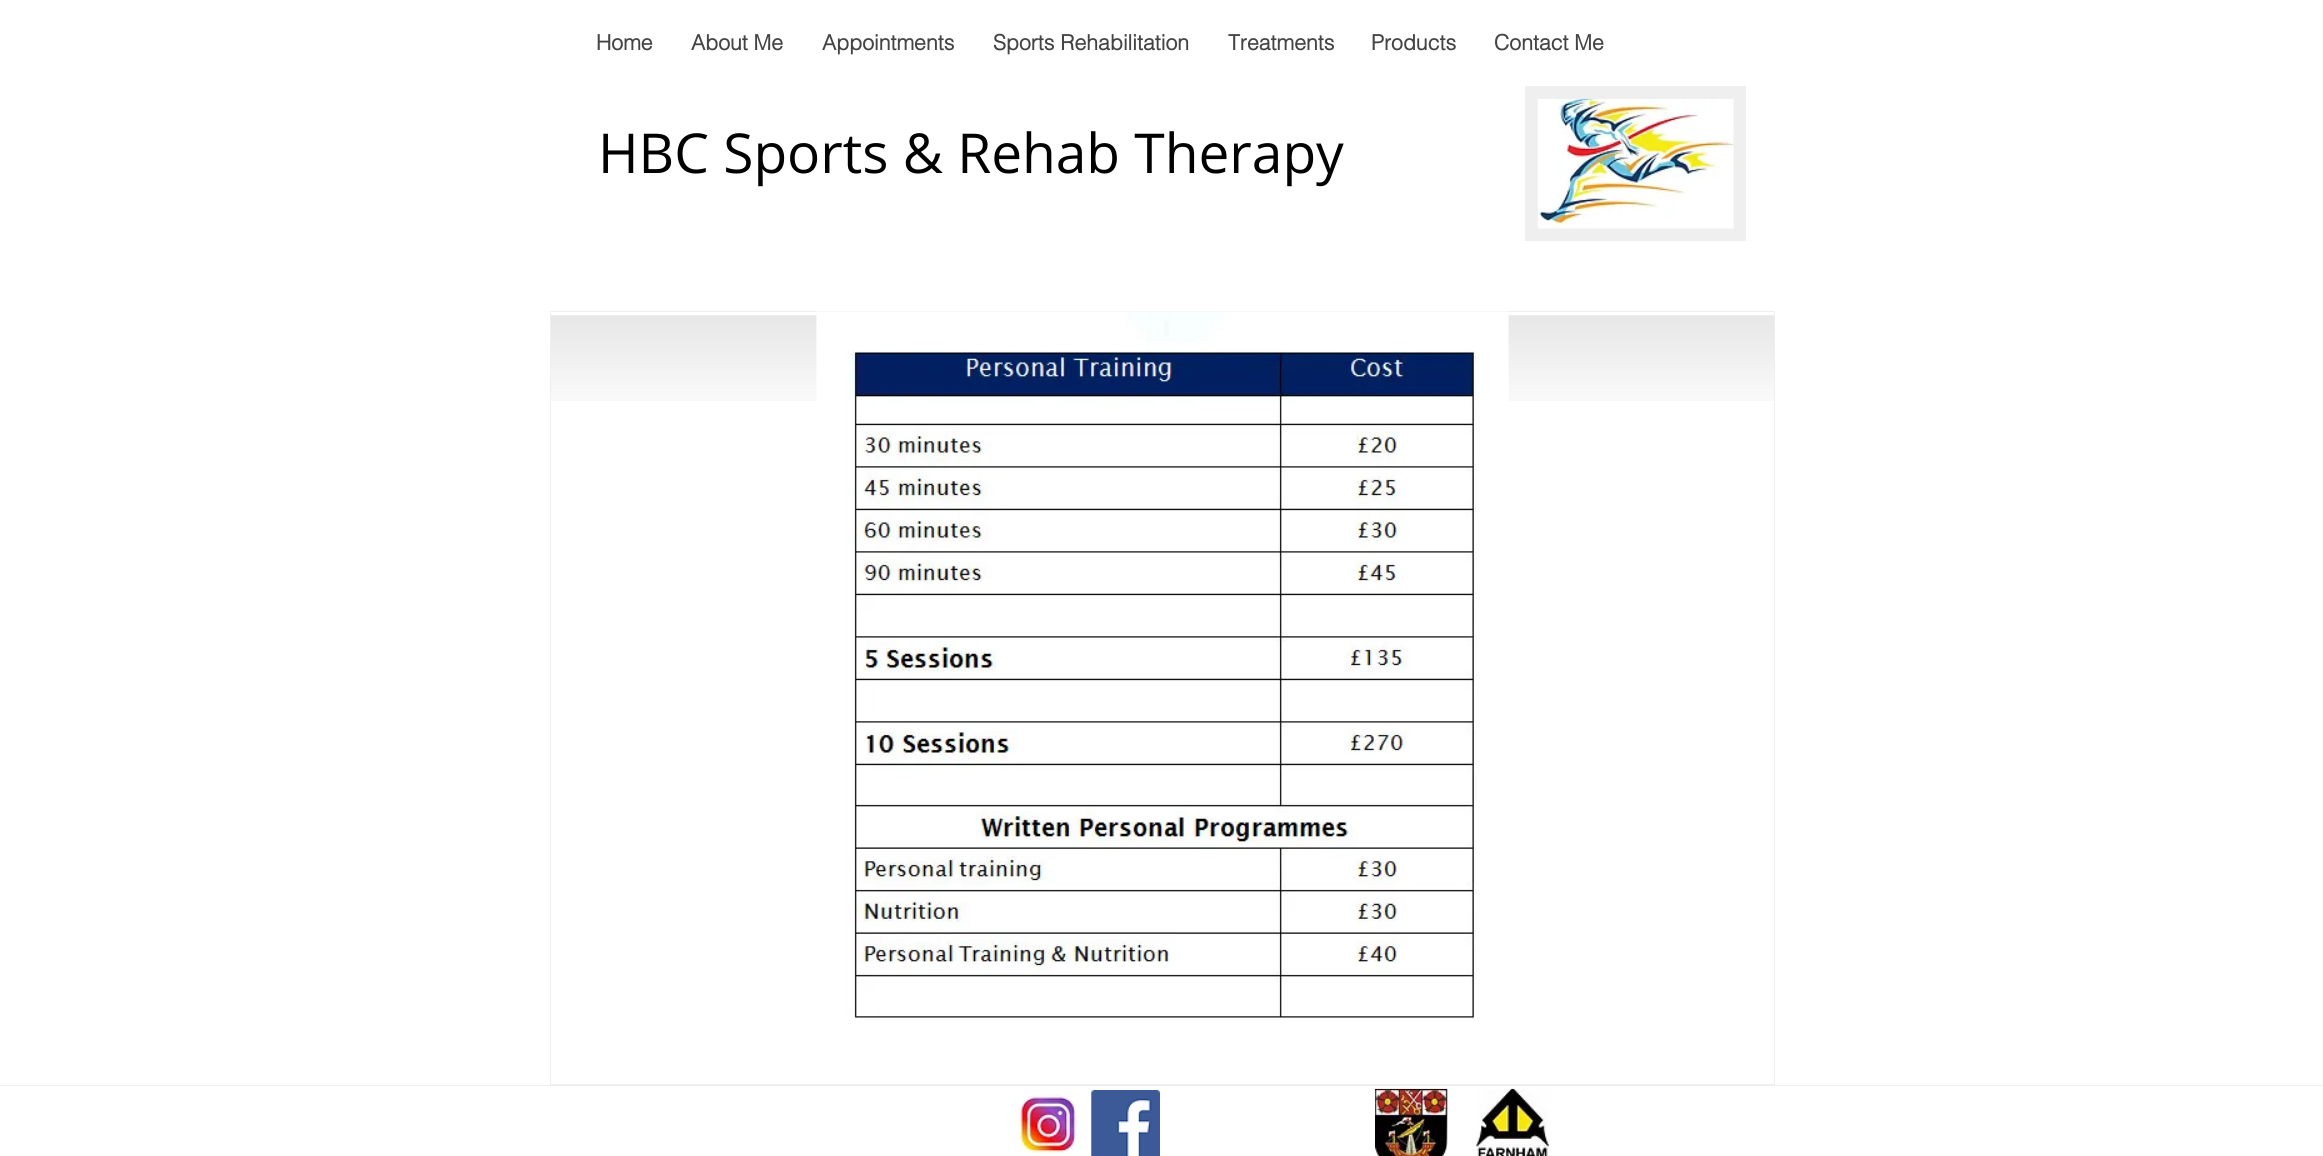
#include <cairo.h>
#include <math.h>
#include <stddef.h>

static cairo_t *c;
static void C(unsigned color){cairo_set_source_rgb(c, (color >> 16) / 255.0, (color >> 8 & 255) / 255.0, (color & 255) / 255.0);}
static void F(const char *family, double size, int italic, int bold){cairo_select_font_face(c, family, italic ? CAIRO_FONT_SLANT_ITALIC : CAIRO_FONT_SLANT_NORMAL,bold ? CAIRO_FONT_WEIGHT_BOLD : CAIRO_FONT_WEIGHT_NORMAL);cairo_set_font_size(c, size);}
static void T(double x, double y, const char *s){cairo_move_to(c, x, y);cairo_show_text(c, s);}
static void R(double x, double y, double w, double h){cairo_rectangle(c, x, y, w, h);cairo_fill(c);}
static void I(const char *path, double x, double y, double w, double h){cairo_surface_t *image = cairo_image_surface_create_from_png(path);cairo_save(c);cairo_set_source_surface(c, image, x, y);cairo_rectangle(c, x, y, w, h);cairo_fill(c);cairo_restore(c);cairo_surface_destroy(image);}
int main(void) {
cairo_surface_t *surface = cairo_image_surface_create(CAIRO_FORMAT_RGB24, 2323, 1156);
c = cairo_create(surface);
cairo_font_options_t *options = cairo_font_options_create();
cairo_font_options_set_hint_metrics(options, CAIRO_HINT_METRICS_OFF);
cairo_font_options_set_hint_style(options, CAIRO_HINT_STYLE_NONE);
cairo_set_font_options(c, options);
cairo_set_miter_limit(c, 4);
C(0xffffff);
cairo_paint(c);
F("helvetica",21.25,0,1);
C(0x444444);
T(596,50,"Home");
T(691,50,"About Me");
T(822,50,"Appointments");
T(993,50,"Sports Rehabilitation");
T(1228,50,"Treatments");
T(1371,50,"Products");
T(1494,50,"Contact Me");
F("Open Sans",55,0,0);
C(0x000000);
T(598,173,"HBC Sports & Rehab Therapy");
C(0xefefef);
R(1525,86,221,155);
I("1.png",1537,98,197,131);
I("2.png",551,315,1223,86);
cairo_rectangle(c,550.5,311.5,1224,773);
cairo_set_line_width(c,1);
cairo_stroke(c);
I("3.png",816,311,693,709);
R(0,1085,2323,1);
I("4.png",1014,1090,67,64);
I("5.png",1091,1090,69,66);
I("6.png",1375,1088,73,68);
I("7.png",1476,1088,75,68);
cairo_surface_write_to_png(surface, "o.png");
cairo_font_options_destroy(options);
cairo_destroy(c);
cairo_surface_destroy(surface);
return 0;
}
